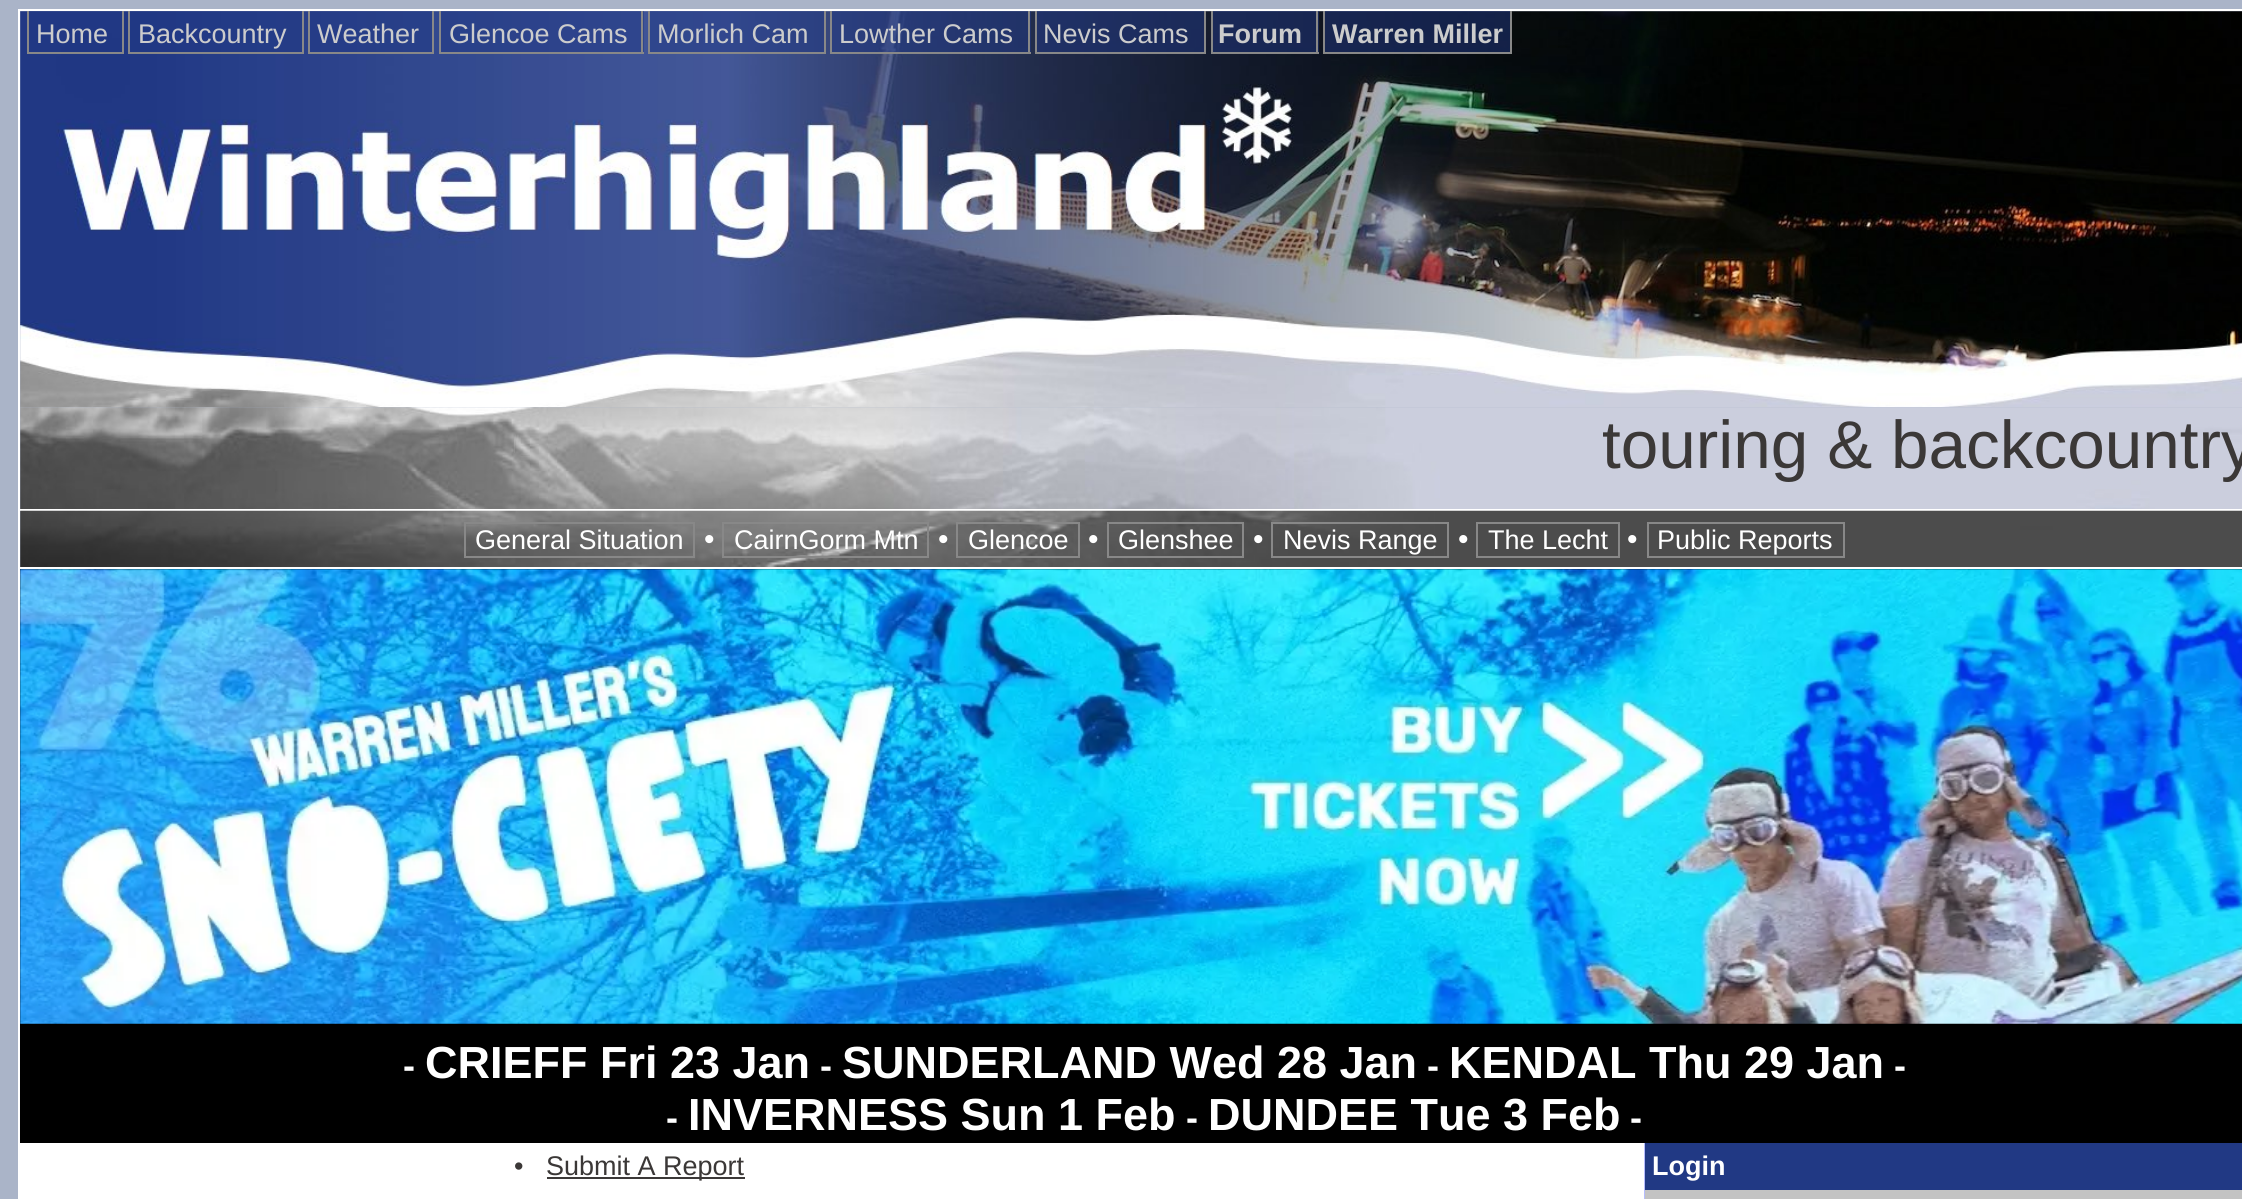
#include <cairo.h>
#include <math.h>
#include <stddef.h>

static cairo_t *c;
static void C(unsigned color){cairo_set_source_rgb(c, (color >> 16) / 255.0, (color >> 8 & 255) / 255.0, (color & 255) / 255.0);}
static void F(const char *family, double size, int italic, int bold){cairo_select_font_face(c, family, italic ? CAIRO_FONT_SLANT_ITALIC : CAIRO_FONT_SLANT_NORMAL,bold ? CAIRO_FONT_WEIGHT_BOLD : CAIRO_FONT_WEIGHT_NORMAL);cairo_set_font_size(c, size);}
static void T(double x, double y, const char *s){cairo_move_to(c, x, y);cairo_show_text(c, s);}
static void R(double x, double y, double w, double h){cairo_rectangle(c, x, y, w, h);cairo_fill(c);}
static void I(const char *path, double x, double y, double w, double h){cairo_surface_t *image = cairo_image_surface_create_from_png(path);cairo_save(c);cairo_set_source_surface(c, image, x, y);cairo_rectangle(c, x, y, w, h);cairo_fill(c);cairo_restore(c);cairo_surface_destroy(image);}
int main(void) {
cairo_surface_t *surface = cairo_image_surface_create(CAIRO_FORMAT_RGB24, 2242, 1199);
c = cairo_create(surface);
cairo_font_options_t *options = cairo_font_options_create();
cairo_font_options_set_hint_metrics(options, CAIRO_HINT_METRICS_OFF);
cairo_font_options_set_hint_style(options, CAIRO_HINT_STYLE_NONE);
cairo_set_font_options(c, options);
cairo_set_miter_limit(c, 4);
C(0xaab4c8);
cairo_paint(c);
I("1.png",20,11,2222,397);
C(0xffffff);
R(18,9,2224,2);
R(18,9,2,398);
F("Liberation Sans",27,0,0);
C(0xcccccc);
T(36,43,"Home");
cairo_set_source_rgba(c,0.129,0.224,0.522,0.5);
R(29,11,93,1);
C(0x888888);
R(122,11,2,43);
R(27,52,97,2);
R(27,11,2,43);
cairo_set_source_rgba(c,0.129,0.224,0.522,0.5);
R(130,11,172,41);
C(0xcccccc);
T(138,43,"Backcountry");
C(0x888888);
R(302,11,2,43);
R(128,52,176,2);
R(128,11,2,43);
cairo_set_source_rgba(c,0.129,0.224,0.522,0.5);
R(310,11,122,41);
C(0xcccccc);
T(317,43,"Weather");
C(0x888888);
R(432,11,2,43);
R(308,52,126,2);
R(308,11,2,43);
cairo_set_source_rgba(c,0.129,0.224,0.522,0.5);
R(441,11,203,41);
C(0xcccccc);
T(449,43,"Glencoe Cams");
C(0x888888);
R(641,11,2,43);
R(439,52,205,2);
R(439,11,2,43);
cairo_set_source_rgba(c,0.129,0.224,0.522,0.5);
R(650,11,174,41);
C(0xcccccc);
T(657,43,"Morlich Cam");
C(0x888888);
R(824,11,2,43);
R(648,52,178,2);
R(648,11,2,43);
cairo_set_source_rgba(c,0.129,0.224,0.522,0.5);
R(832,11,199,41);
C(0xcccccc);
T(839,43,"Lowther Cams");
C(0x888888);
R(1028,11,2,43);
R(830,52,201,2);
R(830,11,2,43);
cairo_set_source_rgba(c,0.129,0.224,0.522,0.5);
R(1037,11,167,41);
C(0xcccccc);
T(1043,43,"Nevis Cams");
C(0x888888);
R(1204,11,2,43);
R(1035,52,171,2);
R(1035,11,2,43);
cairo_set_source_rgba(c,0.129,0.224,0.522,0.5);
R(1213,11,106,41);
F("Liberation Sans",27,0,1);
C(0xcccccc);
T(1218,43,"Forum");
C(0x888888);
R(1316,11,2,43);
R(1211,52,108,2);
R(1211,11,2,43);
cairo_set_source_rgba(c,0.129,0.224,0.522,0.5);
R(1325,11,185,41);
C(0xcccccc);
T(1332,43,"Warren Miller");
C(0x888888);
R(1510,11,2,43);
R(1323,52,189,2);
R(1323,11,2,43);
I("2.png",20,407,2222,102);
C(0xffffff);
R(18,509,2224,2);
R(18,407,2,104);
F("Liberation Sans",67.5,0,0);
C(0x3b3837);
T(1602,468,"touring & backcountry");
I("3.png",20,510,2222,57);
C(0xffffff);
R(18,567,2224,2);
R(18,511,2,632);
cairo_rectangle(c,465,523,229,34);
C(0x888888);
cairo_stroke(c);
F("Liberation Sans",27,0,0);
C(0xffffff);
T(475,549,"General Situation");
F("Liberation Sans",30,0,0);
T(704,549,"•");
cairo_rectangle(c,723,523,205,34);
C(0x888888);
cairo_stroke(c);
F("Liberation Sans",27,0,0);
C(0xffffff);
T(734,549,"CairnGorm Mtn");
F("Liberation Sans",30,0,0);
T(938,549,"•");
cairo_rectangle(c,957,523,122,34);
C(0x888888);
cairo_stroke(c);
F("Liberation Sans",27,0,0);
C(0xffffff);
T(968,549,"Glencoe");
F("Liberation Sans",30,0,0);
T(1088,549,"•");
cairo_rectangle(c,1108,523,135,34);
C(0x888888);
cairo_stroke(c);
F("Liberation Sans",27,0,0);
C(0xffffff);
T(1118,549,"Glenshee");
F("Liberation Sans",30,0,0);
T(1253,549,"•");
cairo_rectangle(c,1272,523,176,34);
C(0x888888);
cairo_stroke(c);
F("Liberation Sans",27,0,0);
C(0xffffff);
T(1283,549,"Nevis Range");
F("Liberation Sans",30,0,0);
T(1458,549,"•");
cairo_rectangle(c,1477,523,142,34);
C(0x888888);
cairo_stroke(c);
F("Liberation Sans",27,0,0);
C(0xffffff);
T(1488,549,"The Lecht");
F("Liberation Sans",30,0,0);
T(1627,549,"•");
cairo_rectangle(c,1648,523,196,34);
C(0x888888);
cairo_stroke(c);
F("Liberation Sans",27,0,0);
C(0xffffff);
T(1657,549,"Public Reports");
C(0x000000);
R(20,569,2222,574);
I("4.png",20,569,2222,455);
F("Liberation Sans",36,0,1);
C(0xffffff);
T(403,1078,"-");
F("Liberation Sans",45,0,1);
T(425,1078,"CRIEFF Fri 23 Jan");
F("Liberation Sans",36,0,1);
T(820,1078,"-");
F("Liberation Sans",45,0,1);
T(842,1078,"SUNDERLAND Wed 28 Jan");
F("Liberation Sans",36,0,1);
T(1427,1078,"-");
F("Liberation Sans",45,0,1);
T(1449,1078,"KENDAL Thu 29 Jan");
F("Liberation Sans",36,0,1);
T(1894,1078,"-");
T(666,1130,"-");
F("Liberation Sans",45,0,1);
T(688,1130,"INVERNESS Sun 1 Feb");
F("Liberation Sans",36,0,1);
T(1186,1130,"-");
F("Liberation Sans",45,0,1);
T(1208,1130,"DUNDEE Tue 3 Feb");
F("Liberation Sans",36,0,1);
T(1630,1130,"-");
R(18,1143,1626,56);
F("Liberation Sans",27,0,0);
C(0x3b3837);
T(514,1175,"•");
R(547,1177,198,2);
T(546,1175,"Submit A Report");
C(0xb6bdff);
R(1644,1143,1,56);
C(0x213984);
R(1645,1143,597,47);
F("Liberation Sans",27,0,1);
C(0xffffff);
T(1652,1175,"Login");
C(0xc3c3c3);
R(1645,1190,597,9);
cairo_surface_write_to_png(surface, "o.png");
cairo_font_options_destroy(options);
cairo_destroy(c);
cairo_surface_destroy(surface);
return 0;
}
